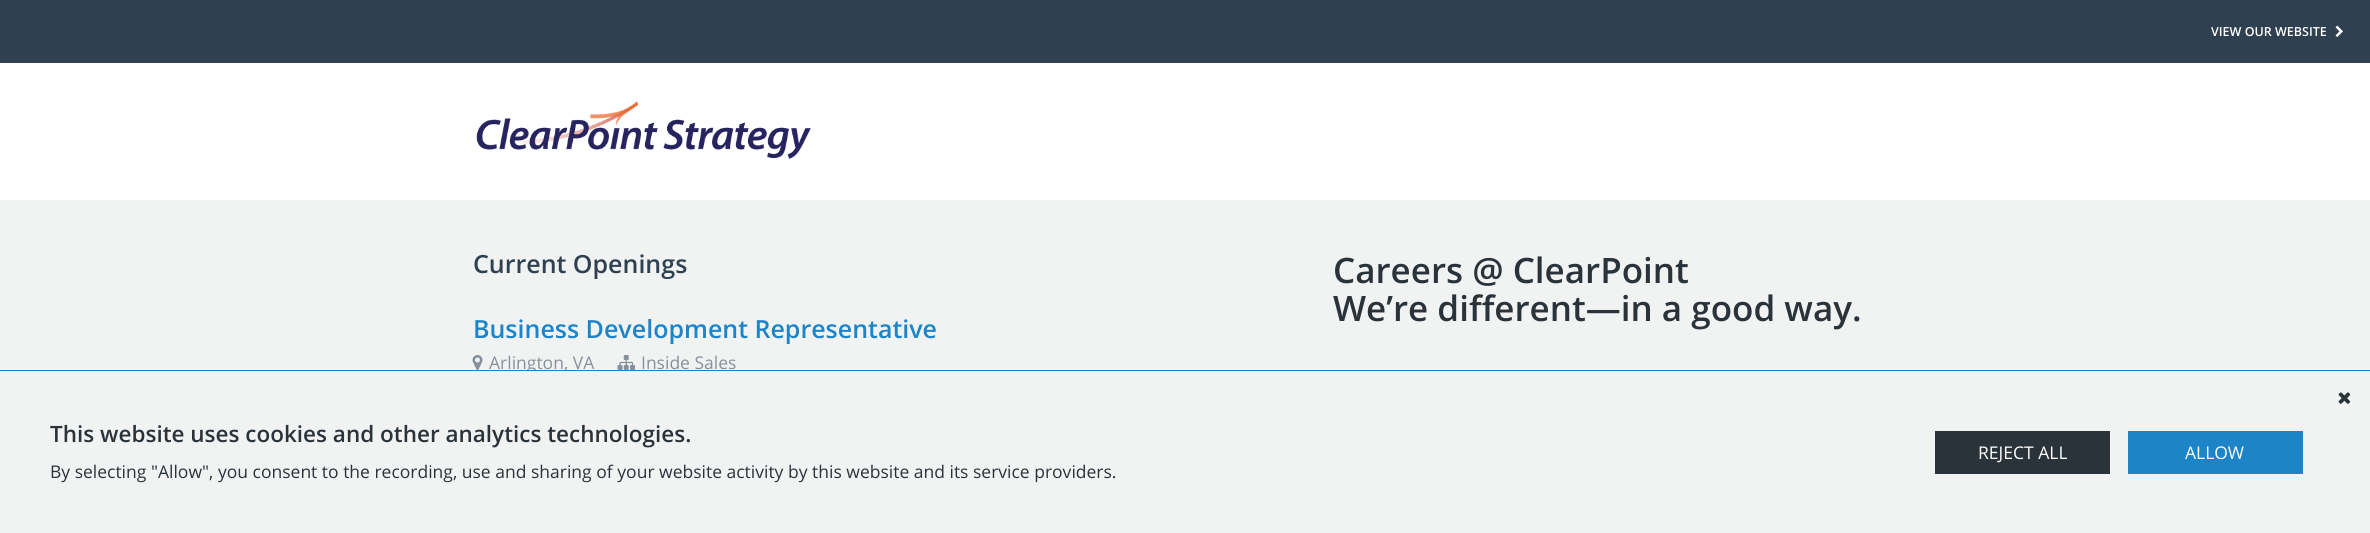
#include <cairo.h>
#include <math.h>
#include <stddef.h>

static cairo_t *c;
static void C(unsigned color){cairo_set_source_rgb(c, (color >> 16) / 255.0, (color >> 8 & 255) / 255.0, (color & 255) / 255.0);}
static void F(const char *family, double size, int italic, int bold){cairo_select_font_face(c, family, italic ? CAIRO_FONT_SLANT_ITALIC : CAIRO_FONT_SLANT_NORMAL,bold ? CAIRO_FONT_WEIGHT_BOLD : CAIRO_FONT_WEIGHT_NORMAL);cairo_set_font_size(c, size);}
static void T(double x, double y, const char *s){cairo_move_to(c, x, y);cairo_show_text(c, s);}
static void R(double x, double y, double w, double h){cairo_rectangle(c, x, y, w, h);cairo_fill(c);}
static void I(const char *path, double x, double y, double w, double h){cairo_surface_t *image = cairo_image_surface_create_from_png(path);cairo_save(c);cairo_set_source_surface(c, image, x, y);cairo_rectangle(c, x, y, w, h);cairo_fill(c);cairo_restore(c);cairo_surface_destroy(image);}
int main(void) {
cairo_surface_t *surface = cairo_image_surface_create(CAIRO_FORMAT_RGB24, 2370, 533);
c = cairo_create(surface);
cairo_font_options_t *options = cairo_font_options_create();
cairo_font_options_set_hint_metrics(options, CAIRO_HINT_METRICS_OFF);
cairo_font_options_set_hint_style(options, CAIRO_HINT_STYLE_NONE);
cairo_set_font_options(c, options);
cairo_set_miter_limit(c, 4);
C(0x2f4050);
cairo_paint(c);
F("Open Sans SemiBold",12.5,0,0);
C(0xffffff);
T(2211,36,"VIEW OUR WEBSITE");
I("1.png",2335,25,8,12);
R(0,63,2370,137);
I("2.png",476,101,335,58);
C(0xf1f3f3);
R(0,200,2370,170);
F("Open Sans SemiBold",25,0,0);
C(0x2f4050);
T(473,273,"Current Openings");
C(0x1d84c7);
T(473,338,"Business Development Representative");
I("3.png",472,355,11,15);
F("Open Sans",17.5,0,0);
C(0x87919b);
T(489,369,"Arlington, VA");
I("4.png",617,355,18,15);
T(641,369,"Inside Sales");
F("Open Sans SemiBold",35,0,0);
C(0x2b333a);
T(1333,283,"Careers @ ClearPoint");
T(1333,321,"We’re different—in a good way.");
C(0xf1f3f3);
R(0,371,2370,162);
C(0x1d84c7);
R(0,370,2370,1);
I("5.png",2338,392,13,12);
F("Open Sans SemiBold",22.5,0,0);
C(0x2b333a);
T(50,442,"This website uses cookies and other analytics technologies.");
F("Open Sans",17.5,0,0);
T(50,478,"By selecting \"Allow\", you consent to the recording, use and sharing of your website activity by this website and its service providers.");
R(1935,431,175,43);
C(0xffffff);
T(1978,459,"REJECT ALL");
C(0x1d84c7);
R(2128,431,175,43);
C(0xffffff);
T(2185,459,"ALLOW");
cairo_surface_write_to_png(surface, "o.png");
cairo_font_options_destroy(options);
cairo_destroy(c);
cairo_surface_destroy(surface);
return 0;
}
